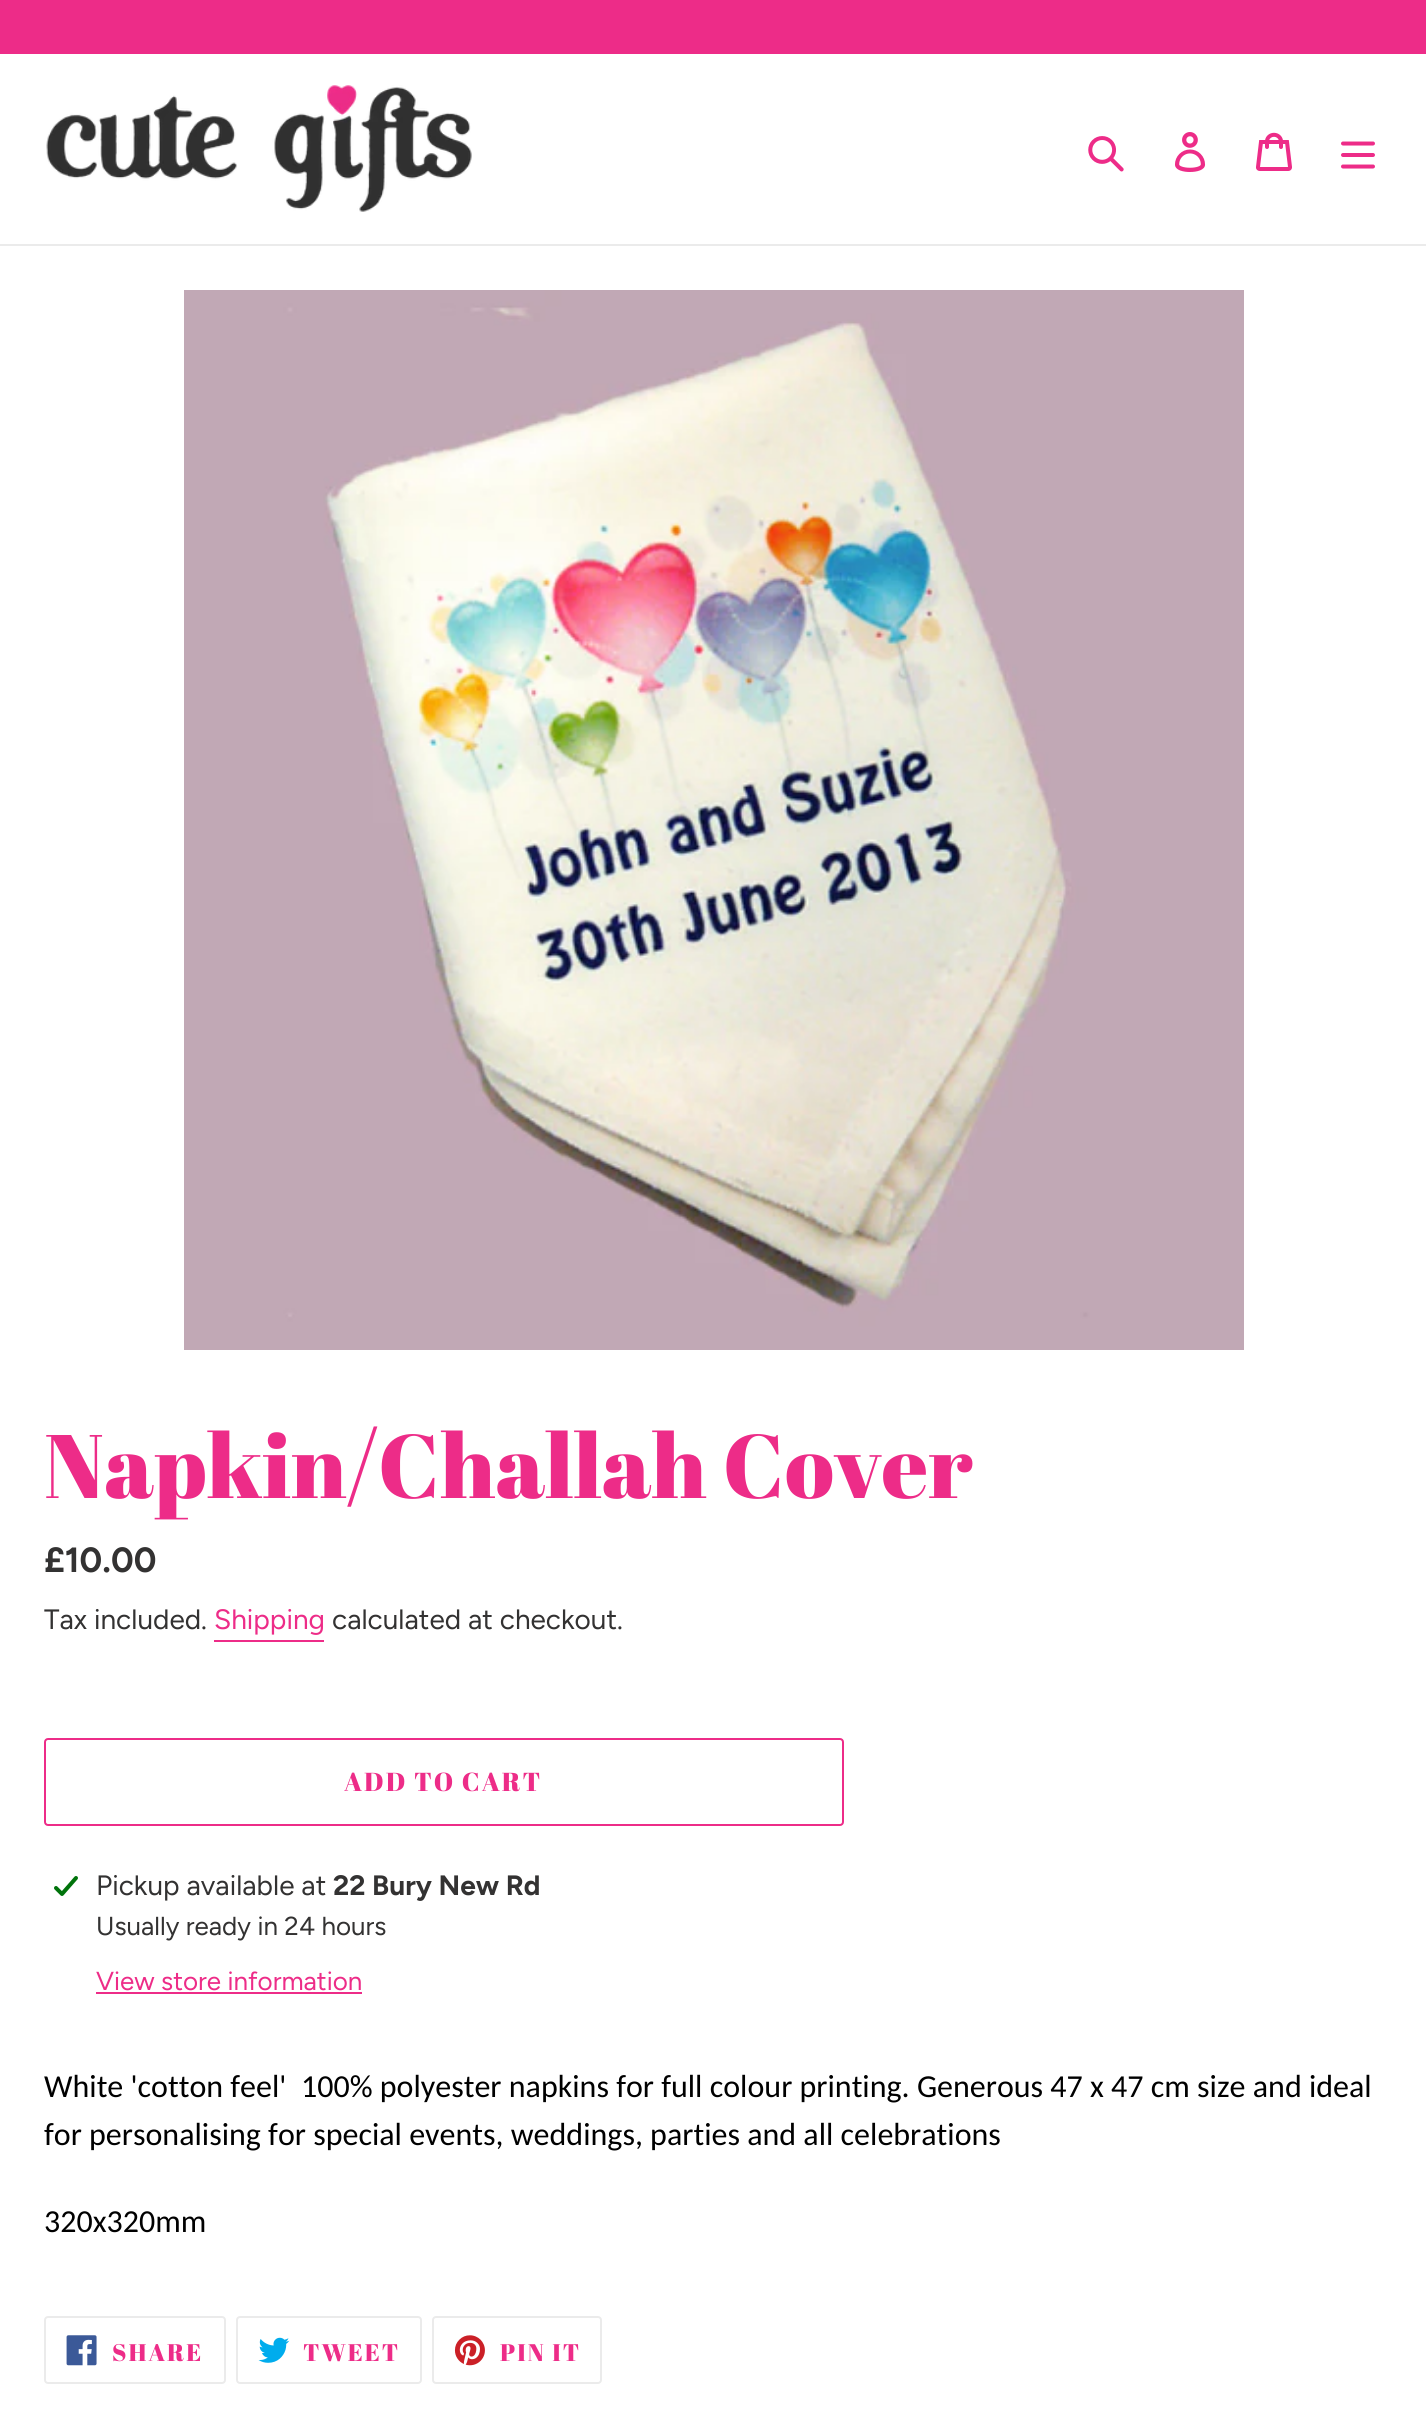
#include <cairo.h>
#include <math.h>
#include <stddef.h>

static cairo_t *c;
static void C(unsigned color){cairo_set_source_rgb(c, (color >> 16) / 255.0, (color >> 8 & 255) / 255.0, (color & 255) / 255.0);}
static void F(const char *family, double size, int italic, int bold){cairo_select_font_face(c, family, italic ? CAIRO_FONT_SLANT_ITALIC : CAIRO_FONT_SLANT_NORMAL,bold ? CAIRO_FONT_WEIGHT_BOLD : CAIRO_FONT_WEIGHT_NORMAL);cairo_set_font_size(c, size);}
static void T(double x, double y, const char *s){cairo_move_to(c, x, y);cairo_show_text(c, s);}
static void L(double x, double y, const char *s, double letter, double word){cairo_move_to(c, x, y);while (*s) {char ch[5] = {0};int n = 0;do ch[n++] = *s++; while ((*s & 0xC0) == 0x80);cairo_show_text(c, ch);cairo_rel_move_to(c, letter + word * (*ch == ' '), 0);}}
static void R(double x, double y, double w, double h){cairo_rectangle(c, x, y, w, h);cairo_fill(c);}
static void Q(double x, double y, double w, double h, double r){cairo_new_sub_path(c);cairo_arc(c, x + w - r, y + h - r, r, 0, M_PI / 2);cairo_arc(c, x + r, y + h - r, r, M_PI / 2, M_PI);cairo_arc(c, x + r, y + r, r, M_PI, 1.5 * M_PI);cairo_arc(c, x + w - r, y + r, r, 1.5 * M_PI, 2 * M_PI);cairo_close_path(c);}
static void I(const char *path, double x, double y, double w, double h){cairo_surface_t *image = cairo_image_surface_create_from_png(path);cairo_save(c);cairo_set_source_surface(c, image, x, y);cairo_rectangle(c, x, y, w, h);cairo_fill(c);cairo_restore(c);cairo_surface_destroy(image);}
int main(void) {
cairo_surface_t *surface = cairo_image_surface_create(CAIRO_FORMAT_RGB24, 1426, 2417);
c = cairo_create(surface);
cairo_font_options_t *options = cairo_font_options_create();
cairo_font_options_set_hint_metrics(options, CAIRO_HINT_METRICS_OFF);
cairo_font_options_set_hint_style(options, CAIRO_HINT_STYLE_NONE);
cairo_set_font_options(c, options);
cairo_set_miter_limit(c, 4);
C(0xffffff);
cairo_paint(c);
C(0xed2c88);
R(0,0,1426,54);
C(0xebebeb);
R(0,244,1426,2);
I("1.png",46,85,426,127);
I("2.png",1088,136,36,36);
I("3.png",1175,132,31,40);
I("4.png",1256,132,36,39);
I("5.png",1341,141,34,28);
I("6.png",184,290,1060,1060);
F("Abril Fatface",90,0,0);
C(0xed2c88);
T(44,1498,"Napkin/Challah Cover");
F("Figtree",35,0,1);
C(0x333232);
T(44,1572,"£10.00");
F("Figtree",28,0,0);
T(44,1629,"Tax included.");
C(0xed2c88);
T(214,1629,"Shipping");
R(214,1640,110,2);
C(0x333232);
T(332,1629,"calculated at checkout.");
Q(45,1739,798,86,3);
C(0xed2c88);
cairo_stroke(c);
F("Abril Fatface",26,0,0);
L(344,1791,"ADD TO CART",2,0);
I("7.png",54,1876,24,20);
F("Figtree",28,0,0);
C(0x333232);
T(96,1895,"Pickup available at");
F("Figtree",28,0,1);
T(333,1895,"22 Bury New Rd");
F("Figtree",26,0,0);
T(96,1935,"Usually ready in 24 hours");
C(0xed2c88);
T(96,1990,"View store information");
R(96,1992,266,2);
F("Carlito",32,0,0);
C(0x000000);
T(44,2097,"White 'cotton feel'");
T(301,2097,"100% polyester napkins for full colour printing. Generous 47 x 47 cm size and ideal");
T(44,2145,"for personalising for special events, weddings, parties and all celebrations");
T(44,2232,"320x320mm");
Q(45,2317,180,66,3);
C(0xebebeb);
cairo_stroke(c);
I("8.png",66,2335,31,31);
F("Abril Fatface",24,0,0);
C(0xed2c88);
L(112,2361,"SHARE",2,0);
Q(237,2317,184,66,3);
C(0xebebeb);
cairo_stroke(c);
I("9.png",258,2337,32,26);
C(0xed2c88);
L(303,2361,"TWEET",2,0);
Q(433,2317,168,66,3);
C(0xebebeb);
cairo_stroke(c);
I("10.png",454,2335,31,31);
C(0xed2c88);
L(500,2361,"PIN IT",2,0);
cairo_surface_write_to_png(surface, "o.png");
cairo_font_options_destroy(options);
cairo_destroy(c);
cairo_surface_destroy(surface);
return 0;
}
